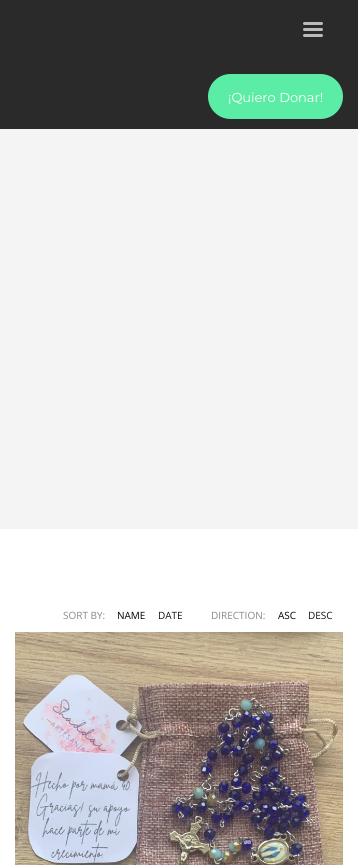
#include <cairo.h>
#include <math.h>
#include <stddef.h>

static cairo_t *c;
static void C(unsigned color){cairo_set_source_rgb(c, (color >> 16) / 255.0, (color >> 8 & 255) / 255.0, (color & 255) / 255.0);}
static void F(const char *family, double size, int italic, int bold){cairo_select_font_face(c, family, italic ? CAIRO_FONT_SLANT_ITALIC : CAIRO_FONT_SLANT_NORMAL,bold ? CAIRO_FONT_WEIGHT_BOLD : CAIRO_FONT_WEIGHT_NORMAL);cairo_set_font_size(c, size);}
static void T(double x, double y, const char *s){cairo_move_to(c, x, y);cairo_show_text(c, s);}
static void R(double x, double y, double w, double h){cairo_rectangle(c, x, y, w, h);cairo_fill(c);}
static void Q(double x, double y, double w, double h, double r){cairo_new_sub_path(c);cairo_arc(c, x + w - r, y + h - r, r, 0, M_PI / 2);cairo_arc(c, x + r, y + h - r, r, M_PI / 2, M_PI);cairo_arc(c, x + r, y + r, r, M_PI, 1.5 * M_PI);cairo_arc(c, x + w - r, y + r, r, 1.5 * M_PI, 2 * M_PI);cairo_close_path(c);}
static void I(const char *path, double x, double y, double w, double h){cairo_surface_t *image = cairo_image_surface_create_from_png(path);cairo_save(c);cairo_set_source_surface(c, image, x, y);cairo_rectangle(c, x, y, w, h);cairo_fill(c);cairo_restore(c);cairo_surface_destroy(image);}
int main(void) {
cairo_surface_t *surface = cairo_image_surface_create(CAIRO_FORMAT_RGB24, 358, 865);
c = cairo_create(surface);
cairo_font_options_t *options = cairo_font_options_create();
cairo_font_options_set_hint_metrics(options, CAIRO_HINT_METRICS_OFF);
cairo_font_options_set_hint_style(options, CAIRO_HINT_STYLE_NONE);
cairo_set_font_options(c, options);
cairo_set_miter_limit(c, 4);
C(0xffffff);
cairo_paint(c);
C(0x2a2a2a);
R(0,0,358,129);
C(0xbbbbbb);
Q(303,22,20,3,1.5);
cairo_fill(c);
Q(303,28,20,3,1.5);
cairo_fill(c);
Q(303,34,20,3,1.5);
cairo_fill(c);
C(0x5beca6);
Q(208,74,135,45,22.5);
cairo_fill(c);
F("Montserrat Thin",13,0,0);
C(0xffffff);
T(228,102,"¡Quiero Donar!");
C(0xf4f4f4);
R(0,129,358,400);
F("Open Sans",10,0,0);
C(0x888888);
T(63,619,"SORT BY:");
C(0x000000);
T(117,619,"NAME");
C(0x131313);
T(158,619,"DATE");
C(0x888888);
T(211,619,"DIRECTION:");
C(0x000000);
T(278,619,"ASC");
C(0x131313);
T(308,619,"DESC");
I("1.png",15,632,328,233);
cairo_surface_write_to_png(surface, "o.png");
cairo_font_options_destroy(options);
cairo_destroy(c);
cairo_surface_destroy(surface);
return 0;
}
